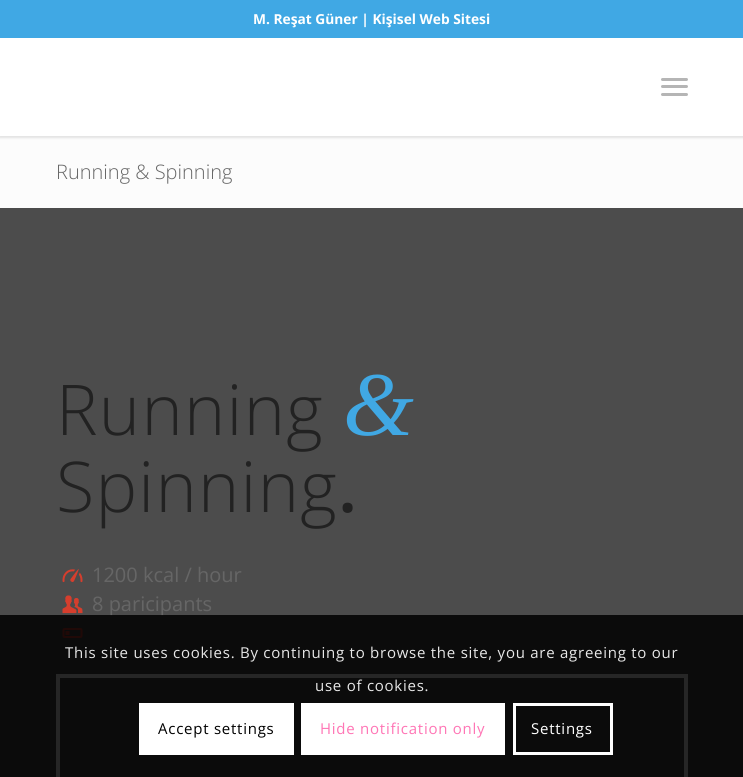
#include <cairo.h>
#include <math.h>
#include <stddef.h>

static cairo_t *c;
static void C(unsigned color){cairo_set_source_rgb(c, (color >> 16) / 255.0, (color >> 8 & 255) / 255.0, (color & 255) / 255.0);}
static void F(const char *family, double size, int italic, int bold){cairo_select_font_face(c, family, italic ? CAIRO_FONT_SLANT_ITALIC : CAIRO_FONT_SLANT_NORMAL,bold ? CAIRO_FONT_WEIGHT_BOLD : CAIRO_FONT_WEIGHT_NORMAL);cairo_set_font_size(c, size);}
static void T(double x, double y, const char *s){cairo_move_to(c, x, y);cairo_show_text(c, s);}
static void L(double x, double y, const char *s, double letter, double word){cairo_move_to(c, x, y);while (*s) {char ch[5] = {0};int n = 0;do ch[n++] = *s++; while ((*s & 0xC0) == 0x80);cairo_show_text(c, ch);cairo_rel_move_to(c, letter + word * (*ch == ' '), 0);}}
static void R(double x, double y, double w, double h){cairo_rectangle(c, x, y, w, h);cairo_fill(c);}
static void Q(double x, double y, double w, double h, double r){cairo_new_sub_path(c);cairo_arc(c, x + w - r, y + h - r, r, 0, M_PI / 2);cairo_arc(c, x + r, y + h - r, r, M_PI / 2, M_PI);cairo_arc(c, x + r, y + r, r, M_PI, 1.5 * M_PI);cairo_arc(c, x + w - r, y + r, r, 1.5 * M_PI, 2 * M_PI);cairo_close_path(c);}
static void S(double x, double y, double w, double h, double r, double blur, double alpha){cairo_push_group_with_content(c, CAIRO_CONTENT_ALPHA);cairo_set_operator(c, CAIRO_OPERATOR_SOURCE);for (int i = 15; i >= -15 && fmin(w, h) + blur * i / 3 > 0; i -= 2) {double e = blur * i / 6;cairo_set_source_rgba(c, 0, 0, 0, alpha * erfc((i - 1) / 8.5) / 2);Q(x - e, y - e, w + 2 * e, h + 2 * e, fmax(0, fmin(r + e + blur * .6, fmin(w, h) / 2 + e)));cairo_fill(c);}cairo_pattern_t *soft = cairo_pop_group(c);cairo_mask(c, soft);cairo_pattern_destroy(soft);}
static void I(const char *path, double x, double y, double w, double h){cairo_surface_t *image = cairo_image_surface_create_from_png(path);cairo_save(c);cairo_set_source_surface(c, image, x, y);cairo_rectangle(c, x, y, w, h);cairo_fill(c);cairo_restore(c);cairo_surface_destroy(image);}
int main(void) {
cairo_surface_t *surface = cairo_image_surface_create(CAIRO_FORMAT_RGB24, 743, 777);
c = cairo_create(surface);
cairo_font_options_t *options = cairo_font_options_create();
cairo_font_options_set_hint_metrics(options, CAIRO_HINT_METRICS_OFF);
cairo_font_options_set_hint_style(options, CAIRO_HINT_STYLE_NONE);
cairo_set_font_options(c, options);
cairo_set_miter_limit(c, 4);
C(0xfcfcfc);
cairo_paint(c);
C(0x000000);
S(-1,-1,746,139,0,1,.1);
C(0x40a8e4);
R(0,0,743,38);
F("Open Sans",13.75,0,1);
C(0xffffff);
T(253,24,"M. Reşat Güner | Kişisel Web Sitesi");
R(0,38,743,98);
C(0xb5b5b5);
Q(661,85,27,3,1.5);
cairo_fill(c);
Q(661,78,27,3,1.5);
cairo_fill(c);
Q(661,93,27,3,1.5);
cairo_fill(c);
F("Open Sans Light",20,0,0);
C(0x666666);
T(56,179,"Running & Spinning");
C(0x4c4c4c);
R(0,208,743,569);
F("Open Sans Light",70,0,0);
C(0x222222);
L(56,435,"Running",1.25,0);
F("Liberation Serif",91,1,0);
C(0x40a8e4);
L(343,435,"&",1.25,0);
F("Open Sans Light",70,0,0);
C(0x222222);
L(56,512,"Spinning",1.25,0);
F("Open Sans SemiBold",70,0,0);
L(338,512,".",1.25,0);
I("1.png",62,569,21,14);
F("Open Sans",20,0,0);
C(0x666666);
T(92,582,"1200 kcal / hour");
I("2.png",62,595,21,19);
T(92,611,"8 paricipants");
I("3.png",62,628,21,10);
cairo_rectangle(c,58,676,628,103);
C(0xffffff);
cairo_set_line_width(c,4);
cairo_stroke(c);
cairo_set_source_rgba(c,0,0,0,0.85);
R(0,615,743,162);
F("Open Sans",15,0,0);
C(0xe7e7e7);
L(65,658,"This site uses cookies. By continuing to browse the site, you are agreeing to our",.75,0);
L(315,691,"use of cookies.",.75,0);
C(0xffffff);
R(139,703,155,52);
C(0x000000);
L(158,734,"Accept settings",.75,0);
C(0xffffff);
R(301,703,204,52);
C(0xff75b5);
L(320,734,"Hide notification only",.75,0);
cairo_rectangle(c,514.5,704.5,97,49);
C(0xffffff);
cairo_set_line_width(c,3);
cairo_stroke(c);
L(531,734,"Settings",.75,0);
cairo_surface_write_to_png(surface, "o.png");
cairo_font_options_destroy(options);
cairo_destroy(c);
cairo_surface_destroy(surface);
return 0;
}
